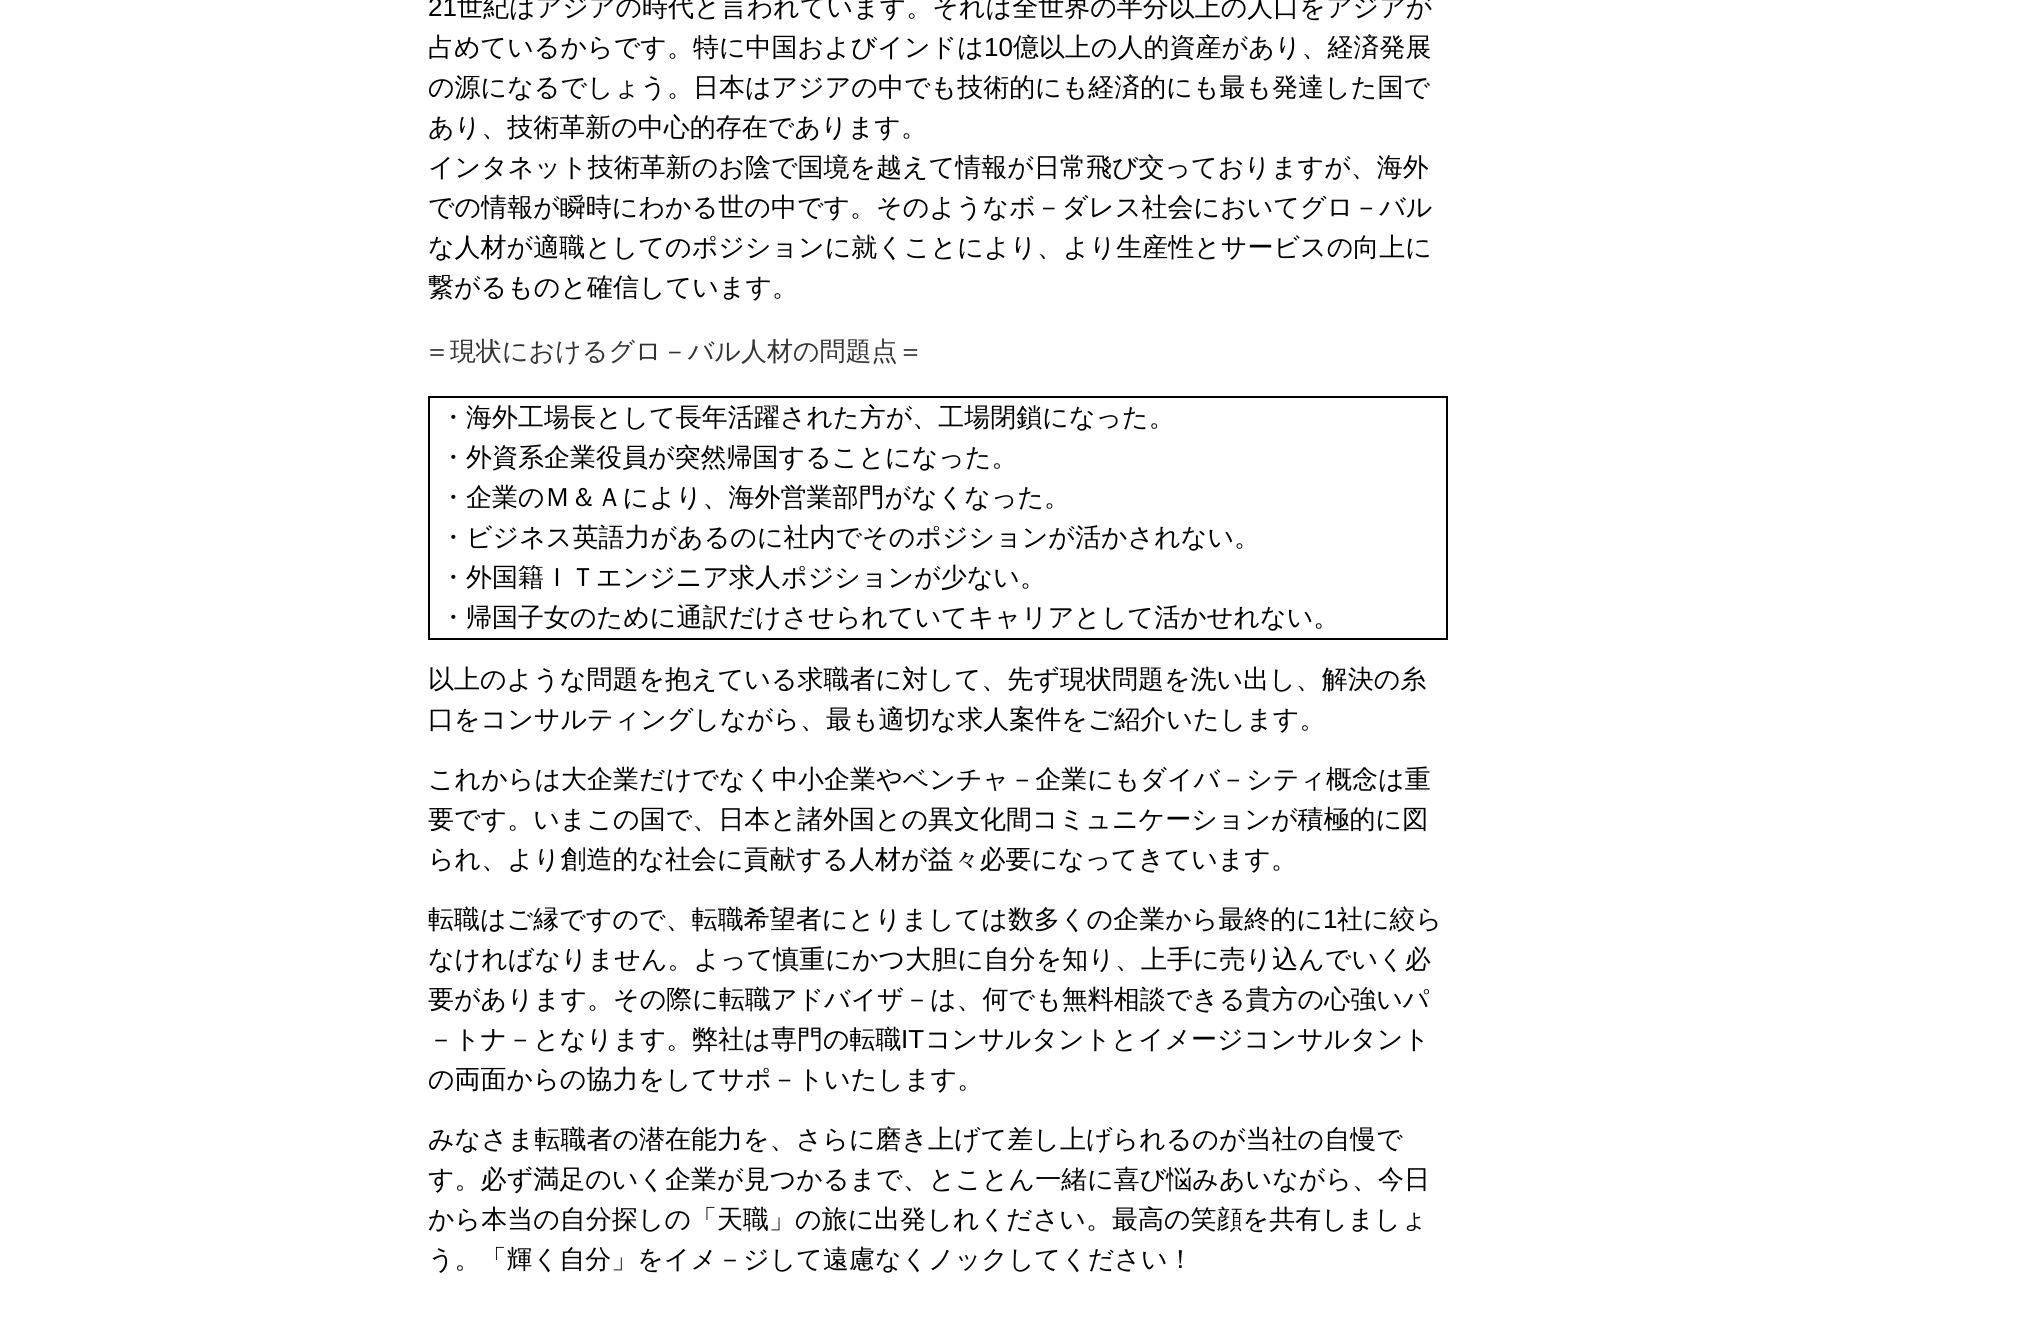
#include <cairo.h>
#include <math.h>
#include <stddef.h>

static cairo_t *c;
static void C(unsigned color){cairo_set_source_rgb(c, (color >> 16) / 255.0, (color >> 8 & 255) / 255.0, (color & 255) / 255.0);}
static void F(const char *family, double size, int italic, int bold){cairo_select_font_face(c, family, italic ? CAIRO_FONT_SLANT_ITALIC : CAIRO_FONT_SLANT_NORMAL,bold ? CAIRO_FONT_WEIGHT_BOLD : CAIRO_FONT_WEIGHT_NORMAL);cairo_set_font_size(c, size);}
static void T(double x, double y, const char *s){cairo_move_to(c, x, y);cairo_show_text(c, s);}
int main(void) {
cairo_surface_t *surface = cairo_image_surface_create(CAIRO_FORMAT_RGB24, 2028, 1320);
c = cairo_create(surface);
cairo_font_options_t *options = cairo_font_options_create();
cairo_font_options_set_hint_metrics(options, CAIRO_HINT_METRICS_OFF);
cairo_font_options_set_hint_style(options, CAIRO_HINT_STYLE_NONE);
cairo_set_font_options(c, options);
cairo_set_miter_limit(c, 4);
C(0xffffff);
cairo_paint(c);
F("Liberation Sans",26,0,0);
C(0x000000);
T(428,16,"21");
F("WenQuanYi Zen Hei Medium",26,0,0);
T(457,16,"世紀はアジアの時代と言われています。それは全世界の半分以上の人口をアジアが");
T(428,56,"占めているからです。特に中国およびインドは");
F("Liberation Sans",26,0,0);
T(984,56,"10");
F("WenQuanYi Zen Hei Medium",26,0,0);
T(1013,56,"億以上の人的資産があり、経済発展");
T(428,96,"の源になるでしょう。日本はアジアの中でも技術的にも経済的にも最も発達した国で");
T(428,136,"あり、技術革新の中心的存在であります。");
T(428,176,"インタネット技術革新のお陰で国境を越えて情報が日常飛び交っておりますが、海外");
T(428,216,"での情報が瞬時にわかる世の中です。そのようなボ－ダレス社会においてグロ－バル");
T(428,256,"な人材が適職としてのポジションに就くことにより、より生産性とサービスの向上に");
T(428,296,"繋がるものと確信しています。");
C(0x333333);
T(424,360,"＝現状におけるグロ－バル人材の問題点＝");
cairo_rectangle(c,429,397,1018,242);
C(0x000000);
cairo_stroke(c);
T(440,426,"・海外工場長として長年活躍された方が、工場閉鎖になった。");
T(440,466,"・外資系企業役員が突然帰国することになった。");
T(440,506,"・企業のＭ＆Ａにより、海外営業部門がなくなった。");
T(440,546,"・ビジネス英語力があるのに社内でそのポジションが活かされない。");
T(440,586,"・外国籍ＩＴエンジニア求人ポジションが少ない。");
T(440,626,"・帰国子女のために通訳だけさせられていてキャリアとして活かせれない。");
T(428,688,"以上のような問題を抱えている求職者に対して、先ず現状問題を洗い出し、解決の糸");
T(428,728,"口をコンサルティングしながら、最も適切な求人案件をご紹介いたします。");
T(428,788,"これからは大企業だけでなく中小企業やベンチャ－企業にもダイバ－シティ概念は重");
T(428,828,"要です。いまこの国で、日本と諸外国との異文化間コミュニケーションが積極的に図");
T(428,868,"られ、より創造的な社会に貢献する人材が益々必要になってきています。");
T(428,928,"転職はご縁ですので、転職希望者にとりましては数多くの企業から最終的に");
F("Liberation Sans",26,0,0);
T(1323,928,"1");
F("WenQuanYi Zen Hei Medium",26,0,0);
T(1337,928,"社に絞ら");
T(428,968,"なければなりません。よって慎重にかつ大胆に自分を知り、上手に売り込んでいく必");
T(428,1008,"要があります。その際に転職アドバイザ－は、何でも無料相談できる貴方の心強いパ");
T(428,1048,"－トナ－となります。弊社は専門の転職");
F("Liberation Sans",26,0,0);
T(901,1048,"IT");
F("WenQuanYi Zen Hei Medium",26,0,0);
T(925,1048,"コンサルタントとイメージコンサルタント");
T(428,1088,"の両面からの協力をしてサポ－トいたします。");
T(428,1148,"みなさま転職者の潜在能力を、さらに磨き上げて差し上げられるのが当社の自慢で");
T(428,1188,"す。必ず満足のいく企業が見つかるまで、とことん一緒に喜び悩みあいながら、今日");
T(428,1228,"から本当の自分探しの「天職」の旅に出発しれください。最高の笑顔を共有しましょ");
T(428,1268,"う。「輝く自分」をイメ－ジして遠慮なくノックしてください！");
cairo_surface_write_to_png(surface, "o.png");
cairo_font_options_destroy(options);
cairo_destroy(c);
cairo_surface_destroy(surface);
return 0;
}
